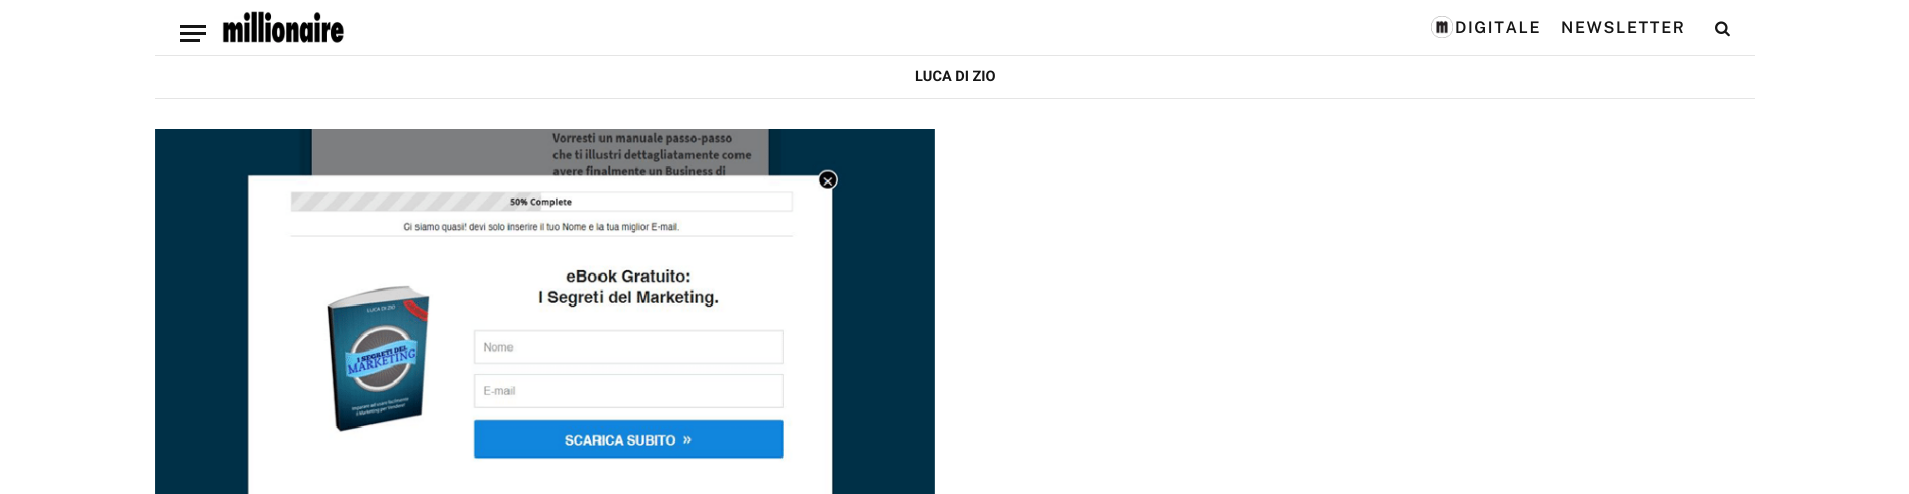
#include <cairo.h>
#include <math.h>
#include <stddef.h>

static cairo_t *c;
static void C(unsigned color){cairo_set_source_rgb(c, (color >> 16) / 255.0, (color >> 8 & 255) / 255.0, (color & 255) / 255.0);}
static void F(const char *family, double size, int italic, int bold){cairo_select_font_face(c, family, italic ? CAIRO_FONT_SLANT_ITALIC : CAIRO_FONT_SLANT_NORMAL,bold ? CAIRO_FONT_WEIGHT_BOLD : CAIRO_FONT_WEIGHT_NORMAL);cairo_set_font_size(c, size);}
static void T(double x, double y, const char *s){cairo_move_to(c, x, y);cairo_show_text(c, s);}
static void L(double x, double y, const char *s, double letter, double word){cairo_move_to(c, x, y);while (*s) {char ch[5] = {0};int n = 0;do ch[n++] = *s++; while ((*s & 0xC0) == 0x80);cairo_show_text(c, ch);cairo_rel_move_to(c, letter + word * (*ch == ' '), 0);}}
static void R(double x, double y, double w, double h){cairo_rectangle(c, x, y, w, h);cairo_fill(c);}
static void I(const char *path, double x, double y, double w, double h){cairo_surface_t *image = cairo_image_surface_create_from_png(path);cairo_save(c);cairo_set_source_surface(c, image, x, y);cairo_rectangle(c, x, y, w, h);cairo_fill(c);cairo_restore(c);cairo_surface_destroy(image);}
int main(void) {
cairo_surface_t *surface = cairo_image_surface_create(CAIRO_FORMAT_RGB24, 1909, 494);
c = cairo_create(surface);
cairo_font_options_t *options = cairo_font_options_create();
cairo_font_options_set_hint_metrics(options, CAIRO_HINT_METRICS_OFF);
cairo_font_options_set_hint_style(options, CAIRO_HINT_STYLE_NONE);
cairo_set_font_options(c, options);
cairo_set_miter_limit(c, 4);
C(0xffffff);
cairo_paint(c);
C(0xe5e5e5);
R(155,55,1600,1);
C(0x161616);
R(180,39,20,3);
R(180,25,26,3);
R(180,32,26,3);
I("1.png",222,11,123,32);
I("2.png",1431,16,22,22);
F("Public Sans SemiBold",16,0,0);
L(1455,33,"DIGITALE",1.6,0);
L(1561,33,"NEWSLETTER",1.6,0);
I("3.png",1715,21,15,16);
C(0xe5e5e5);
R(155,98,1600,1);
F("Roboto",14.5,0,1);
C(0x161616);
T(915,81,"LUCA DI ZIO");
I("4.png",155,129,780,365);
cairo_surface_write_to_png(surface, "o.png");
cairo_font_options_destroy(options);
cairo_destroy(c);
cairo_surface_destroy(surface);
return 0;
}
